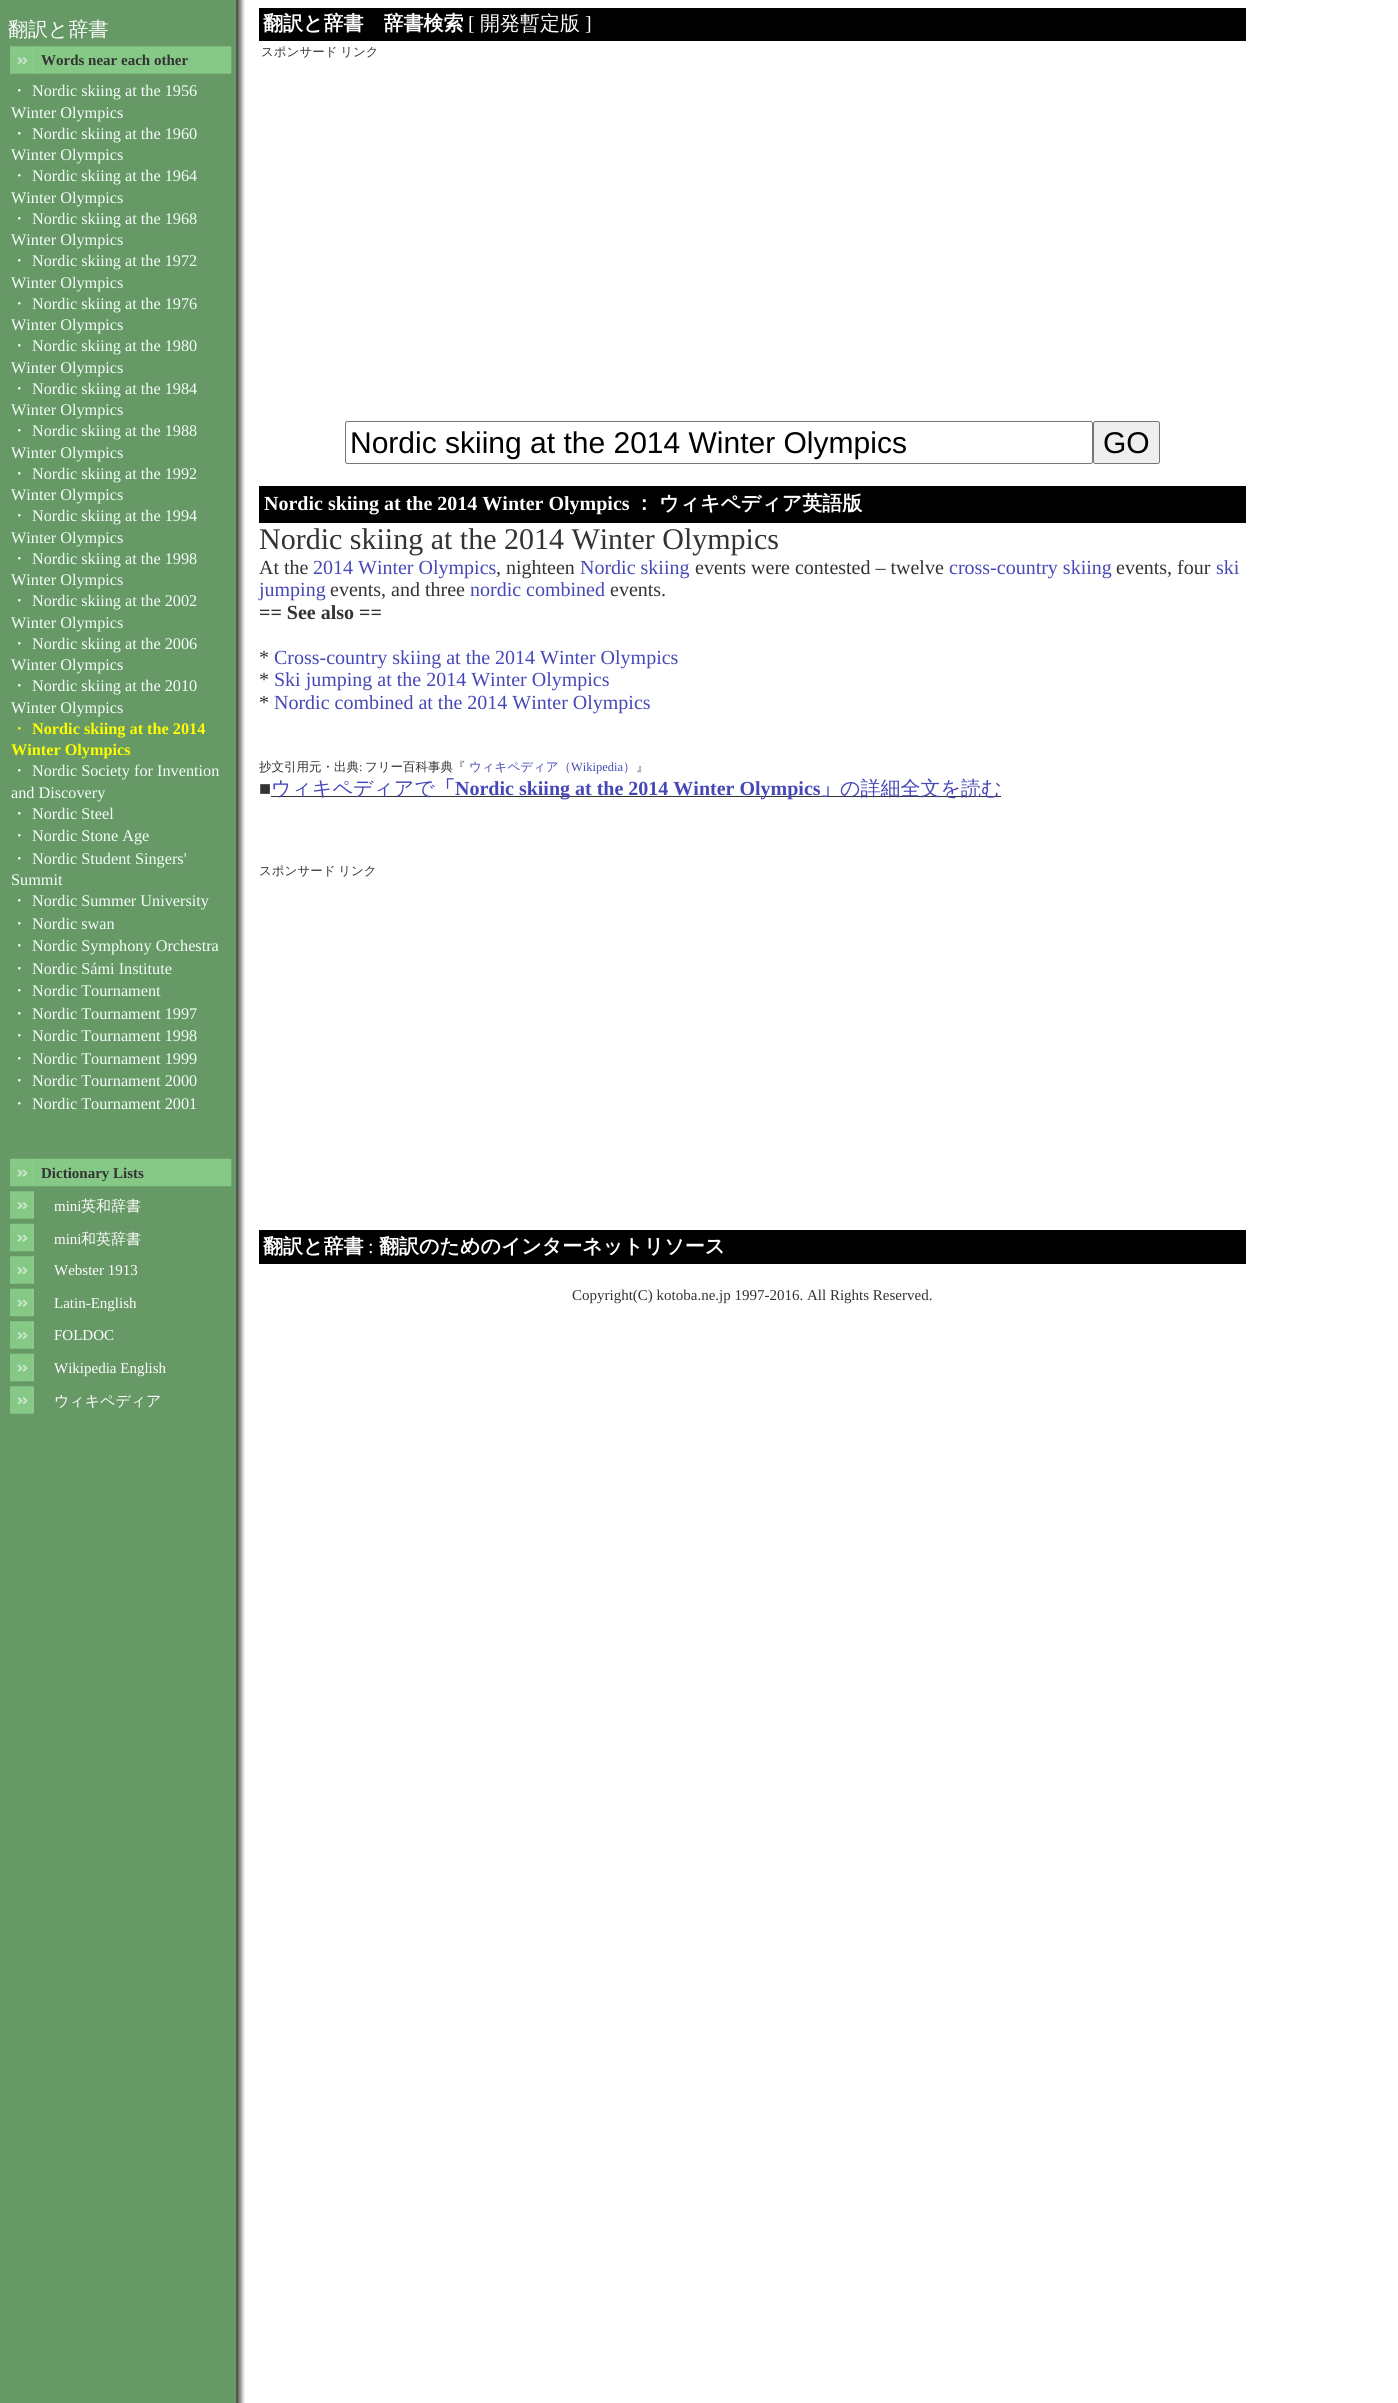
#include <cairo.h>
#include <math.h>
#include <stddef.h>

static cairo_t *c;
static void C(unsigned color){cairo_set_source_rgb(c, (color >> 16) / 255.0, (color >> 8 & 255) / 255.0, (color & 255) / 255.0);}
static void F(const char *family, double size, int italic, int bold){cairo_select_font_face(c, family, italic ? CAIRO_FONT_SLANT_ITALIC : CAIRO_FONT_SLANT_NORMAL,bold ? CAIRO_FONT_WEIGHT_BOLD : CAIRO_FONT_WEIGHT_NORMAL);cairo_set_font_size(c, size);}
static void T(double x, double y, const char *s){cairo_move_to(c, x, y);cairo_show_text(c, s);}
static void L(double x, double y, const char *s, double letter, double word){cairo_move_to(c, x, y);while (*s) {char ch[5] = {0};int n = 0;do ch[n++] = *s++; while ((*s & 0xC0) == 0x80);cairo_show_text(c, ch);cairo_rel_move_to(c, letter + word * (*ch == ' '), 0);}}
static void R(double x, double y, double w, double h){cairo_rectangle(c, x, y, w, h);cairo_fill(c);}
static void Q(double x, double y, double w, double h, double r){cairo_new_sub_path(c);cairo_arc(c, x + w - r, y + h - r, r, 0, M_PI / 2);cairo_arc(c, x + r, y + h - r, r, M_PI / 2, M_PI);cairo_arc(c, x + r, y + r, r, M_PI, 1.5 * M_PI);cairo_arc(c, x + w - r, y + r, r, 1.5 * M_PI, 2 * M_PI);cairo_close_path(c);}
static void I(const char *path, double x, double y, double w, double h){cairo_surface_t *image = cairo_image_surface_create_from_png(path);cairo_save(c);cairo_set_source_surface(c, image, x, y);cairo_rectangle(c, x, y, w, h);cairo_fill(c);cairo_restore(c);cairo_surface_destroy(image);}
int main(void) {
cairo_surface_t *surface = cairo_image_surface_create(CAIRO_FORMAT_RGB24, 1398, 2403);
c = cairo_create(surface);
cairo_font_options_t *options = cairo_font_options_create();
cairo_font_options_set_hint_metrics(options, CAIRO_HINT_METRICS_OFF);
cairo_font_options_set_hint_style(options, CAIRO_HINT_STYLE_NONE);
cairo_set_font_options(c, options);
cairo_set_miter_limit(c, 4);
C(0xffffff);
cairo_paint(c);
I("1.png",0,0,245,2403);
F("WenQuanYi Zen Hei Medium",20,0,0);
C(0xffffff);
T(8,36,"翻訳と辞書");
I("2.png",10,46,222,28);
F("Liberation Serif",15,0,1);
C(0x333333);
T(41,65,"Words near each other");
F("WenQuanYi Zen Hei Medium",16.25,0,0);
C(0xf5fffa);
T(11,96,"・");
F("Liberation Serif",16.25,0,0);
T(32,96,"Nordic skiing at the 1956");
T(11,118,"Winter Olympics");
F("WenQuanYi Zen Hei Medium",16.25,0,0);
T(11,139,"・");
F("Liberation Serif",16.25,0,0);
T(32,139,"Nordic skiing at the 1960");
T(11,160,"Winter Olympics");
F("WenQuanYi Zen Hei Medium",16.25,0,0);
T(11,181,"・");
F("Liberation Serif",16.25,0,0);
T(32,181,"Nordic skiing at the 1964");
T(11,203,"Winter Olympics");
F("WenQuanYi Zen Hei Medium",16.25,0,0);
T(11,224,"・");
F("Liberation Serif",16.25,0,0);
T(32,224,"Nordic skiing at the 1968");
T(11,245,"Winter Olympics");
F("WenQuanYi Zen Hei Medium",16.25,0,0);
T(11,266,"・");
F("Liberation Serif",16.25,0,0);
T(32,266,"Nordic skiing at the 1972");
T(11,288,"Winter Olympics");
F("WenQuanYi Zen Hei Medium",16.25,0,0);
T(11,309,"・");
F("Liberation Serif",16.25,0,0);
T(32,309,"Nordic skiing at the 1976");
T(11,330,"Winter Olympics");
F("WenQuanYi Zen Hei Medium",16.25,0,0);
T(11,351,"・");
F("Liberation Serif",16.25,0,0);
T(32,351,"Nordic skiing at the 1980");
T(11,373,"Winter Olympics");
F("WenQuanYi Zen Hei Medium",16.25,0,0);
T(11,394,"・");
F("Liberation Serif",16.25,0,0);
T(32,394,"Nordic skiing at the 1984");
T(11,415,"Winter Olympics");
F("WenQuanYi Zen Hei Medium",16.25,0,0);
T(11,436,"・");
F("Liberation Serif",16.25,0,0);
T(32,436,"Nordic skiing at the 1988");
T(11,458,"Winter Olympics");
F("WenQuanYi Zen Hei Medium",16.25,0,0);
T(11,479,"・");
F("Liberation Serif",16.25,0,0);
T(32,479,"Nordic skiing at the 1992");
T(11,500,"Winter Olympics");
F("WenQuanYi Zen Hei Medium",16.25,0,0);
T(11,521,"・");
F("Liberation Serif",16.25,0,0);
T(32,521,"Nordic skiing at the 1994");
T(11,543,"Winter Olympics");
F("WenQuanYi Zen Hei Medium",16.25,0,0);
T(11,564,"・");
F("Liberation Serif",16.25,0,0);
T(32,564,"Nordic skiing at the 1998");
T(11,585,"Winter Olympics");
F("WenQuanYi Zen Hei Medium",16.25,0,0);
T(11,606,"・");
F("Liberation Serif",16.25,0,0);
T(32,606,"Nordic skiing at the 2002");
T(11,628,"Winter Olympics");
F("WenQuanYi Zen Hei Medium",16.25,0,0);
T(11,649,"・");
F("Liberation Serif",16.25,0,0);
T(32,649,"Nordic skiing at the 2006");
T(11,670,"Winter Olympics");
F("WenQuanYi Zen Hei Medium",16.25,0,0);
T(11,691,"・");
F("Liberation Serif",16.25,0,0);
T(32,691,"Nordic skiing at the 2010");
T(11,713,"Winter Olympics");
F("WenQuanYi Zen Hei Medium",16.25,0,0);
C(0xffff00);
T(11,734,"・");
F("Liberation Serif",16.25,0,1);
T(32,734,"Nordic skiing at the 2014");
T(11,755,"Winter Olympics");
F("WenQuanYi Zen Hei Medium",16.25,0,0);
C(0xf5fffa);
T(11,776,"・");
F("Liberation Serif",16.25,0,0);
T(32,776,"Nordic Society for Invention");
T(11,798,"and Discovery");
F("WenQuanYi Zen Hei Medium",16.25,0,0);
T(11,819,"・");
F("Liberation Serif",16.25,0,0);
T(32,819,"Nordic Steel");
F("WenQuanYi Zen Hei Medium",16.25,0,0);
T(11,841,"・");
F("Liberation Serif",16.25,0,0);
T(32,841,"Nordic Stone Age");
F("WenQuanYi Zen Hei Medium",16.25,0,0);
T(11,864,"・");
F("Liberation Serif",16.25,0,0);
T(32,864,"Nordic Student Singers'");
T(11,885,"Summit");
F("WenQuanYi Zen Hei Medium",16.25,0,0);
T(11,906,"・");
F("Liberation Serif",16.25,0,0);
T(32,906,"Nordic Summer University");
F("WenQuanYi Zen Hei Medium",16.25,0,0);
T(11,929,"・");
F("Liberation Serif",16.25,0,0);
T(32,929,"Nordic swan");
F("WenQuanYi Zen Hei Medium",16.25,0,0);
T(11,951,"・");
F("Liberation Serif",16.25,0,0);
T(32,951,"Nordic Symphony Orchestra");
F("WenQuanYi Zen Hei Medium",16.25,0,0);
T(11,974,"・");
F("Liberation Serif",16.25,0,0);
T(32,974,"Nordic Sámi Institute");
F("WenQuanYi Zen Hei Medium",16.25,0,0);
T(11,996,"・");
F("Liberation Serif",16.25,0,0);
T(32,996,"Nordic Tournament");
F("WenQuanYi Zen Hei Medium",16.25,0,0);
T(11,1019,"・");
F("Liberation Serif",16.25,0,0);
T(32,1019,"Nordic Tournament 1997");
F("WenQuanYi Zen Hei Medium",16.25,0,0);
T(11,1041,"・");
F("Liberation Serif",16.25,0,0);
T(32,1041,"Nordic Tournament 1998");
F("WenQuanYi Zen Hei Medium",16.25,0,0);
T(11,1064,"・");
F("Liberation Serif",16.25,0,0);
T(32,1064,"Nordic Tournament 1999");
F("WenQuanYi Zen Hei Medium",16.25,0,0);
T(11,1086,"・");
F("Liberation Serif",16.25,0,0);
T(32,1086,"Nordic Tournament 2000");
F("WenQuanYi Zen Hei Medium",16.25,0,0);
T(11,1109,"・");
F("Liberation Serif",16.25,0,0);
T(32,1109,"Nordic Tournament 2001");
I("3.png",10,1158,222,29);
F("Liberation Serif",15,0,1);
C(0x333333);
T(41,1178,"Dictionary Lists");
I("4.png",10,1191,24,28);
F("Liberation Serif",15,0,0);
C(0xffffff);
T(54,1211,"mini");
F("WenQuanYi Zen Hei Medium",15,0,0);
T(81,1211,"英和辞書");
I("5.png",10,1223,24,29);
F("Liberation Serif",15,0,0);
T(54,1244,"mini");
F("WenQuanYi Zen Hei Medium",15,0,0);
T(81,1244,"和英辞書");
I("4.png",10,1256,24,28);
F("Liberation Serif",15,0,0);
T(54,1275,"Webster 1913");
I("5.png",10,1288,24,29);
T(54,1308,"Latin-English");
I("4.png",10,1321,24,28);
T(54,1340,"FOLDOC");
I("5.png",10,1353,24,29);
T(54,1373,"Wikipedia English");
I("4.png",10,1386,24,28);
F("WenQuanYi Zen Hei Medium",15,0,0);
T(54,1406,"ウィキペディア");
C(0x000000);
R(259,8,987,33);
F("WenQuanYi Zen Hei",20,0,1);
C(0xffffff);
T(263,30,"翻訳と辞書　辞書検索");
F("Liberation Serif",20,0,0);
T(468,30,"[");
F("WenQuanYi Zen Hei Medium",20,0,0);
T(480,30,"開発暫定版");
F("Liberation Serif",20,0,0);
T(585,30,"]");
F("WenQuanYi Zen Hei Medium",12.5,0,0);
C(0x333333);
L(261,56,"スポンサード リンク",0,-1);
Q(345.5,421.5,747,42,2);
C(0x767676);
cairo_set_line_width(c,1);
cairo_stroke(c);
F("Liberation Sans",30,0,0);
C(0x000000);
T(350,453,"Nordic skiing at the 2014 Winter Olympics");
C(0xefefef);
Q(1093.5,421.5,66,42,2);
cairo_fill_preserve(c);
C(0x767676);
cairo_stroke(c);
C(0x000000);
T(1103,453,"GO");
R(259,486,987,37);
F("Liberation Serif",20,0,1);
C(0xffffff);
T(264,510,"Nordic skiing at the 2014 Winter Olympics");
F("WenQuanYi Zen Hei",20,0,1);
L(634,510,"： ウィキペディア英語版",0,-1);
F("Liberation Serif",30,0,0);
C(0x333333);
T(259,549,"Nordic skiing at the 2014 Winter Olympics");
F("Liberation Serif",20,0,0);
T(259,574,"At the");
C(0x4648b7);
T(313,574,"2014 Winter Olympics");
C(0x333333);
T(496,574,", nighteen");
C(0x4648b7);
T(580,574,"Nordic skiing");
C(0x333333);
T(695,574,"events were contested – twelve");
C(0x4648b7);
T(949,574,"cross-country skiing");
C(0x333333);
T(1116,574,"events, four");
C(0x4648b7);
T(1216,574,"ski");
T(259,596,"jumping");
C(0x333333);
T(330,596,"events, and three");
C(0x4648b7);
T(470,596,"nordic combined");
C(0x333333);
T(610,596,"events.");
F("Liberation Serif",20,0,1);
T(259,619,"== See also ==");
F("Liberation Serif",20,0,0);
T(259,664,"*");
C(0x4648b7);
T(274,664,"Cross-country skiing at the 2014 Winter Olympics");
C(0x333333);
T(259,686,"*");
C(0x4648b7);
T(274,686,"Ski jumping at the 2014 Winter Olympics");
C(0x333333);
T(259,709,"*");
C(0x4648b7);
T(274,709,"Nordic combined at the 2014 Winter Olympics");
F("WenQuanYi Zen Hei Medium",12.5,0,0);
C(0x333333);
T(259,771,"抄文引用元・出典");
F("Liberation Serif",12.5,0,0);
T(359,771,":");
F("WenQuanYi Zen Hei Medium",12.5,0,0);
T(365,771,"フリー百科事典『");
C(0x4648b7);
T(469,771,"ウィキペディア（");
F("Liberation Serif",12.5,0,0);
T(571,771,"Wikipedia");
F("WenQuanYi Zen Hei Medium",12.5,0,0);
T(623,771,"）");
C(0x333333);
T(636,771,"』");
F("Liberation Serif",20,0,0);
T(259,795,"■");
R(271,796,730,1);
F("WenQuanYi Zen Hei Medium",20,0,0);
C(0x4648b7);
T(271,795,"ウィキペディアで");
F("WenQuanYi Zen Hei",20,0,1);
T(435,795,"「");
F("Liberation Serif",20,0,1);
T(455,795,"Nordic skiing at the 2014 Winter Olympics");
F("WenQuanYi Zen Hei",20,0,1);
T(820,795,"」");
F("WenQuanYi Zen Hei Medium",20,0,0);
T(840,795,"の詳細全文を読む");
F("WenQuanYi Zen Hei Medium",12.5,0,0);
C(0x333333);
L(259,875,"スポンサード リンク",0,-1);
C(0x000000);
R(259,1230,987,34);
F("WenQuanYi Zen Hei",20,0,1);
C(0xffffff);
T(263,1253,"翻訳と辞書");
F("Liberation Serif",20,0,0);
T(368,1253,":");
F("WenQuanYi Zen Hei",20,0,1);
T(379,1253,"翻訳のためのインターネットリソース");
F("Liberation Serif",15,0,0);
C(0x333333);
T(572,1300,"Copyright(C) kotoba.ne.jp 1997-2016. All Rights Reserved.");
cairo_surface_write_to_png(surface, "o.png");
cairo_font_options_destroy(options);
cairo_destroy(c);
cairo_surface_destroy(surface);
return 0;
}
